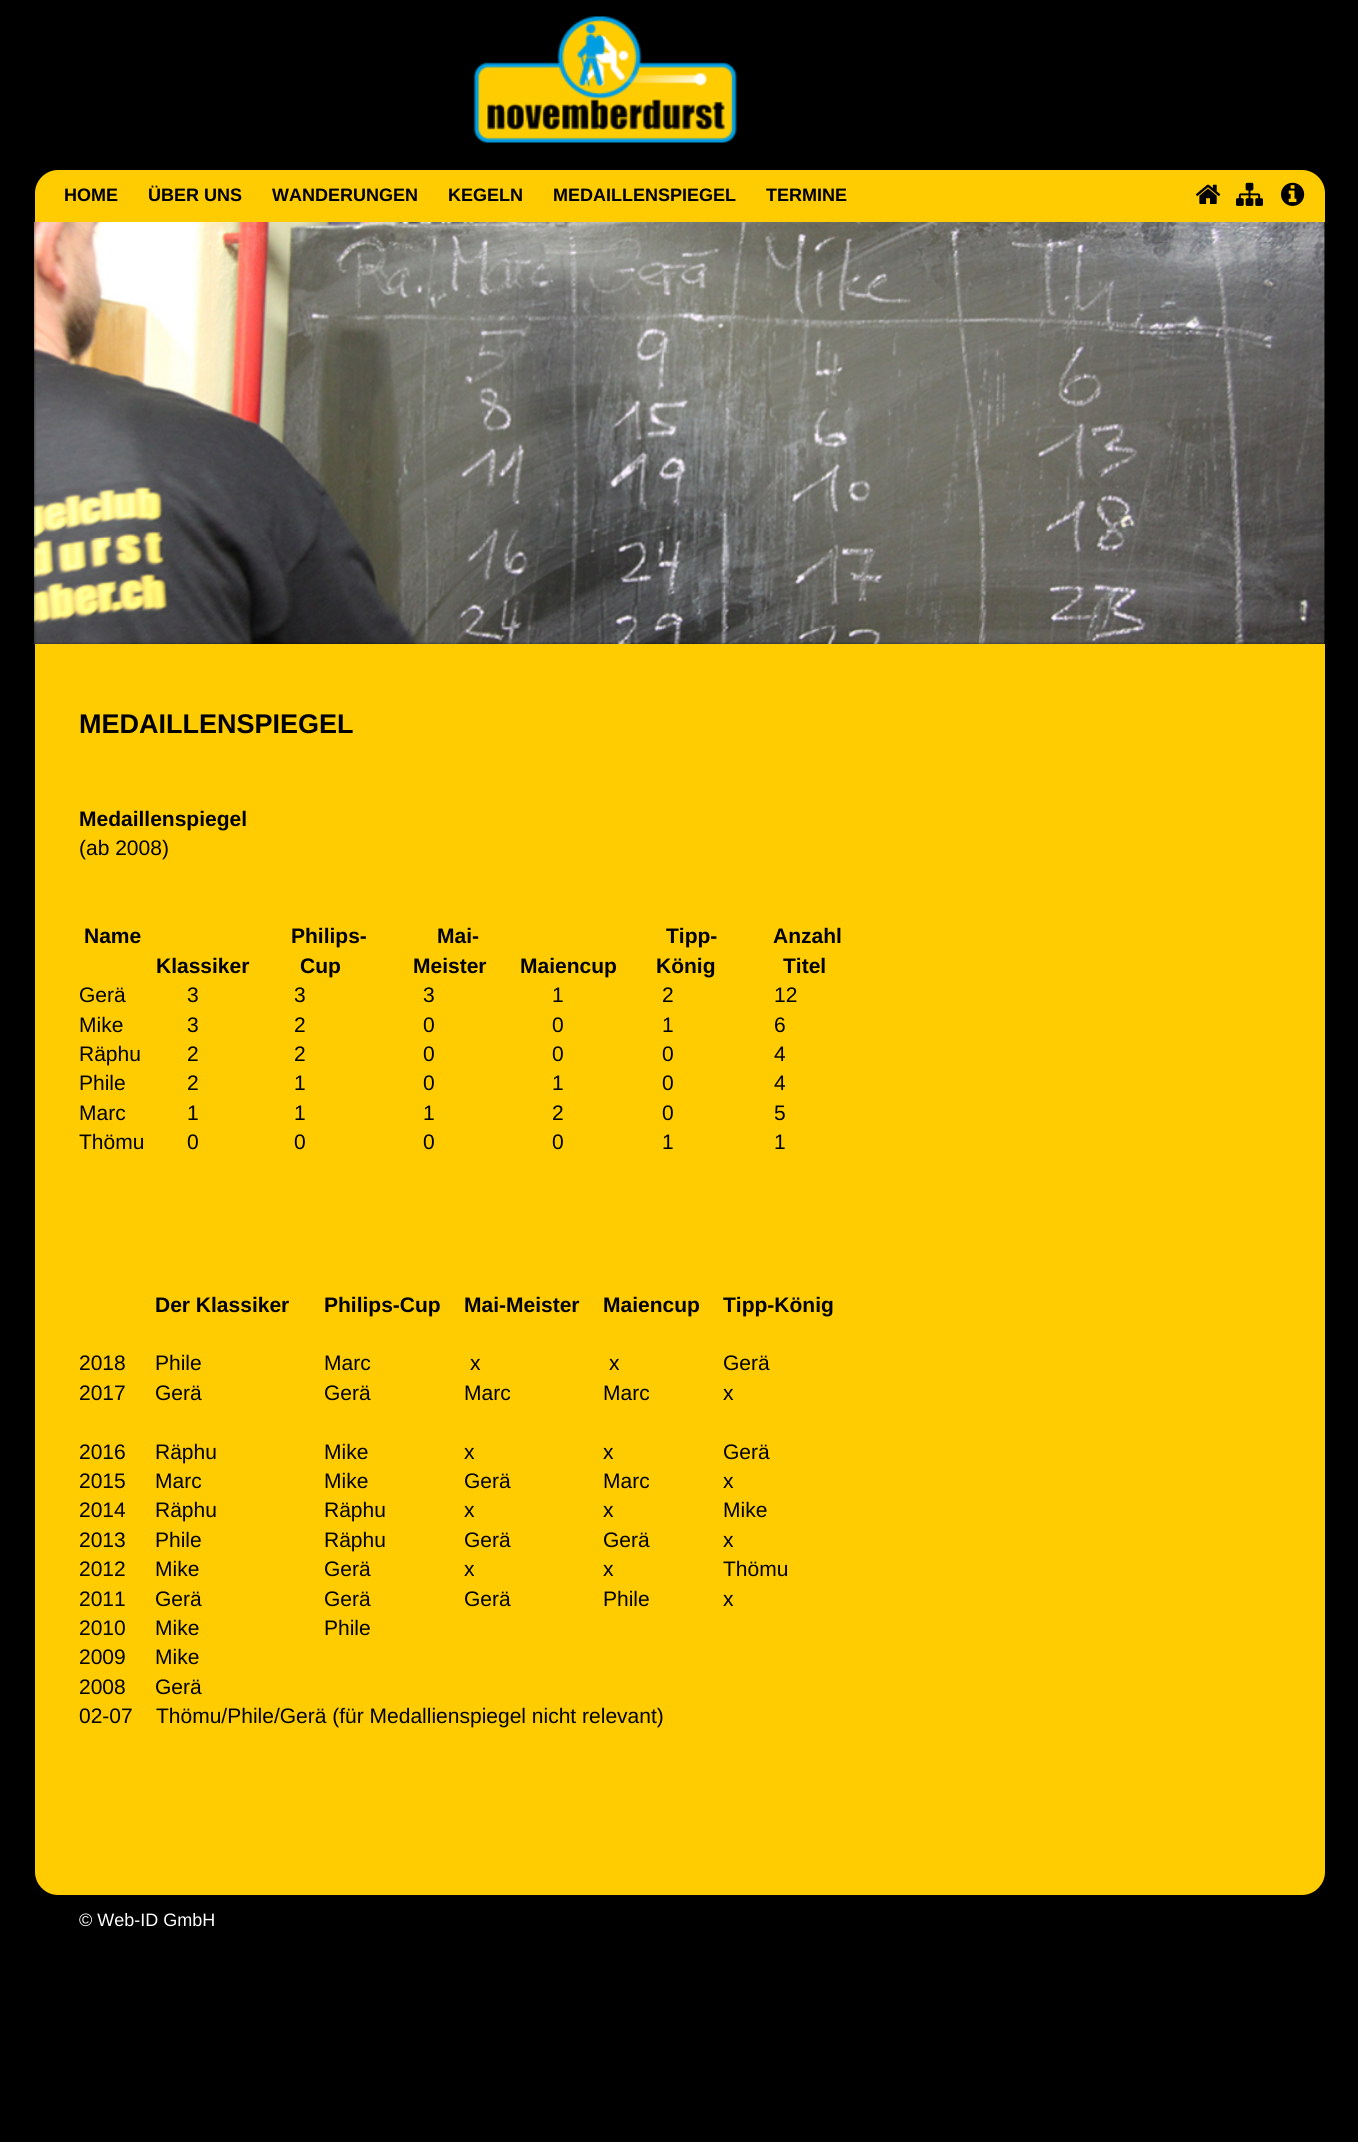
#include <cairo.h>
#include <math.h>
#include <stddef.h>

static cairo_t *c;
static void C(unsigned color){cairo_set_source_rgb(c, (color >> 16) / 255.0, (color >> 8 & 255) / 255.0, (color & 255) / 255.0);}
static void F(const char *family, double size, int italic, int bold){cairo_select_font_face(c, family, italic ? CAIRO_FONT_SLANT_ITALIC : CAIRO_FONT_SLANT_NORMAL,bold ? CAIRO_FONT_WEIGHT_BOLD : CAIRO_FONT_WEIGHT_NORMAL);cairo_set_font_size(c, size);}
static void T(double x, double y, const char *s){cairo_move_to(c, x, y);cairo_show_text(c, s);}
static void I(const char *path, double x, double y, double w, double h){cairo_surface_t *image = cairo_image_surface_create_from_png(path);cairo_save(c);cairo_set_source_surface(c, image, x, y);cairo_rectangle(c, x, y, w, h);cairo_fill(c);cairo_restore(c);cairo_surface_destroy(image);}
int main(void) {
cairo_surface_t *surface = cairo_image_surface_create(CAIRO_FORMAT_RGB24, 1358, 2142);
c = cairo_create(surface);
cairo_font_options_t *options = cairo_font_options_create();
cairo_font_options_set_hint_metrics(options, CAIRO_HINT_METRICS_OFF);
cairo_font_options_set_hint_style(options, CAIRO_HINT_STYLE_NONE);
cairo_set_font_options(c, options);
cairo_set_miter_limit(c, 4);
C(0x000000);
cairo_paint(c);
I("1.png",473,16,264,127);
C(0xffcc01);
cairo_new_path(c);
cairo_move_to(c,58,170);
cairo_line_to(c,1302,170);
cairo_curve_to(c,1314.5,170,1325,180.5,1325,193);
cairo_line_to(c,1325,222);
cairo_line_to(c,35,222);
cairo_line_to(c,35,193);
cairo_curve_to(c,35,180.5,45.5,170,58,170);
cairo_close_path(c);
cairo_fill(c);
F("Liberation Sans",18,0,1);
C(0x000000);
T(64,201,"HOME");
T(148,201,"ÜBER UNS");
T(272,201,"WANDERUNGEN");
T(448,201,"KEGELN");
T(553,201,"MEDAILLENSPIEGEL");
T(766,201,"TERMINE");
I("2.png",1195,184,26,20);
I("3.png",1236,182,27,24);
I("4.png",1281,182,24,24);
I("5.png",34,222,1291,422);
C(0xffcc01);
cairo_new_path(c);
cairo_move_to(c,35,644);
cairo_line_to(c,1325,644);
cairo_line_to(c,1325,1872);
cairo_curve_to(c,1325,1884.5,1314.5,1895,1302,1895);
cairo_line_to(c,58,1895);
cairo_curve_to(c,45.5,1895,35,1884.5,35,1872);
cairo_close_path(c);
cairo_fill(c);
F("Liberation Sans",27,0,1);
C(0x000000);
T(79,733,"MEDAILLENSPIEGEL");
F("Liberation Sans",21,0,1);
T(79,826,"Medaillenspiegel");
F("Liberation Sans",21,0,0);
T(79,855,"(ab 2008)");
F("Liberation Sans",21,0,1);
T(84,943,"Name");
T(291,943,"Philips-");
T(300,973,"Cup");
T(437,943,"Mai-");
T(413,973,"Meister");
T(666,943,"Tipp-");
T(656,973,"König");
T(773,943,"Anzahl");
T(783,973,"Titel");
T(156,973,"Klassiker");
T(520,973,"Maiencup");
F("Liberation Sans",21,0,0);
T(79,1002,"Gerä");
T(187,1002,"3");
T(294,1002,"3");
T(423,1002,"3");
T(552,1002,"1");
T(662,1002,"2");
T(774,1002,"12");
T(79,1032,"Mike");
T(187,1032,"3");
T(294,1032,"2");
T(423,1032,"0");
T(552,1032,"0");
T(662,1032,"1");
T(774,1032,"6");
T(79,1061,"Räphu");
T(187,1061,"2");
T(294,1061,"2");
T(423,1061,"0");
T(552,1061,"0");
T(662,1061,"0");
T(774,1061,"4");
T(79,1090,"Phile");
T(187,1090,"2");
T(294,1090,"1");
T(423,1090,"0");
T(552,1090,"1");
T(662,1090,"0");
T(774,1090,"4");
T(79,1120,"Marc");
T(187,1120,"1");
T(294,1120,"1");
T(423,1120,"1");
T(552,1120,"2");
T(662,1120,"0");
T(774,1120,"5");
T(79,1149,"Thömu");
T(187,1149,"0");
T(294,1149,"0");
T(423,1149,"0");
T(552,1149,"0");
T(662,1149,"1");
T(774,1149,"1");
F("Liberation Sans",21,0,1);
T(155,1312,"Der Klassiker");
T(324,1312,"Philips-Cup");
T(464,1312,"Mai-Meister");
T(603,1312,"Maiencup");
T(723,1312,"Tipp-König");
F("Liberation Sans",21,0,0);
T(79,1370,"2018");
T(79,1400,"2017");
T(155,1370,"Phile");
T(155,1400,"Gerä");
T(324,1370,"Marc");
T(324,1400,"Gerä");
T(470,1370,"x");
T(464,1400,"Marc");
T(609,1370,"x");
T(603,1400,"Marc");
T(723,1370,"Gerä");
T(723,1400,"x");
T(79,1459,"2016");
T(155,1459,"Räphu");
T(324,1459,"Mike");
T(464,1459,"x");
T(603,1459,"x");
T(723,1459,"Gerä");
T(79,1488,"2015");
T(155,1488,"Marc");
T(324,1488,"Mike");
T(464,1488,"Gerä");
T(603,1488,"Marc");
T(723,1488,"x");
T(79,1517,"2014");
T(155,1517,"Räphu");
T(324,1517,"Räphu");
T(464,1517,"x");
T(603,1517,"x");
T(723,1517,"Mike");
T(79,1547,"2013");
T(155,1547,"Phile");
T(324,1547,"Räphu");
T(464,1547,"Gerä");
T(603,1547,"Gerä");
T(723,1547,"x");
T(79,1576,"2012");
T(155,1576,"Mike");
T(324,1576,"Gerä");
T(464,1576,"x");
T(603,1576,"x");
T(723,1576,"Thömu");
T(79,1606,"2011");
T(155,1606,"Gerä");
T(324,1606,"Gerä");
T(464,1606,"Gerä");
T(603,1606,"Phile");
T(723,1606,"x");
T(79,1635,"2010");
T(155,1635,"Mike");
T(324,1635,"Phile");
T(79,1664,"2009");
T(155,1664,"Mike");
T(79,1694,"2008");
T(155,1694,"Gerä");
T(79,1723,"02-07");
T(156,1723,"Thömu/Phile/Gerä (für Medallienspiegel nicht relevant)");
F("Liberation Sans",18,0,0);
C(0xffffff);
T(79,1926,"© Web-ID GmbH");
cairo_surface_write_to_png(surface, "o.png");
cairo_font_options_destroy(options);
cairo_destroy(c);
cairo_surface_destroy(surface);
return 0;
}
